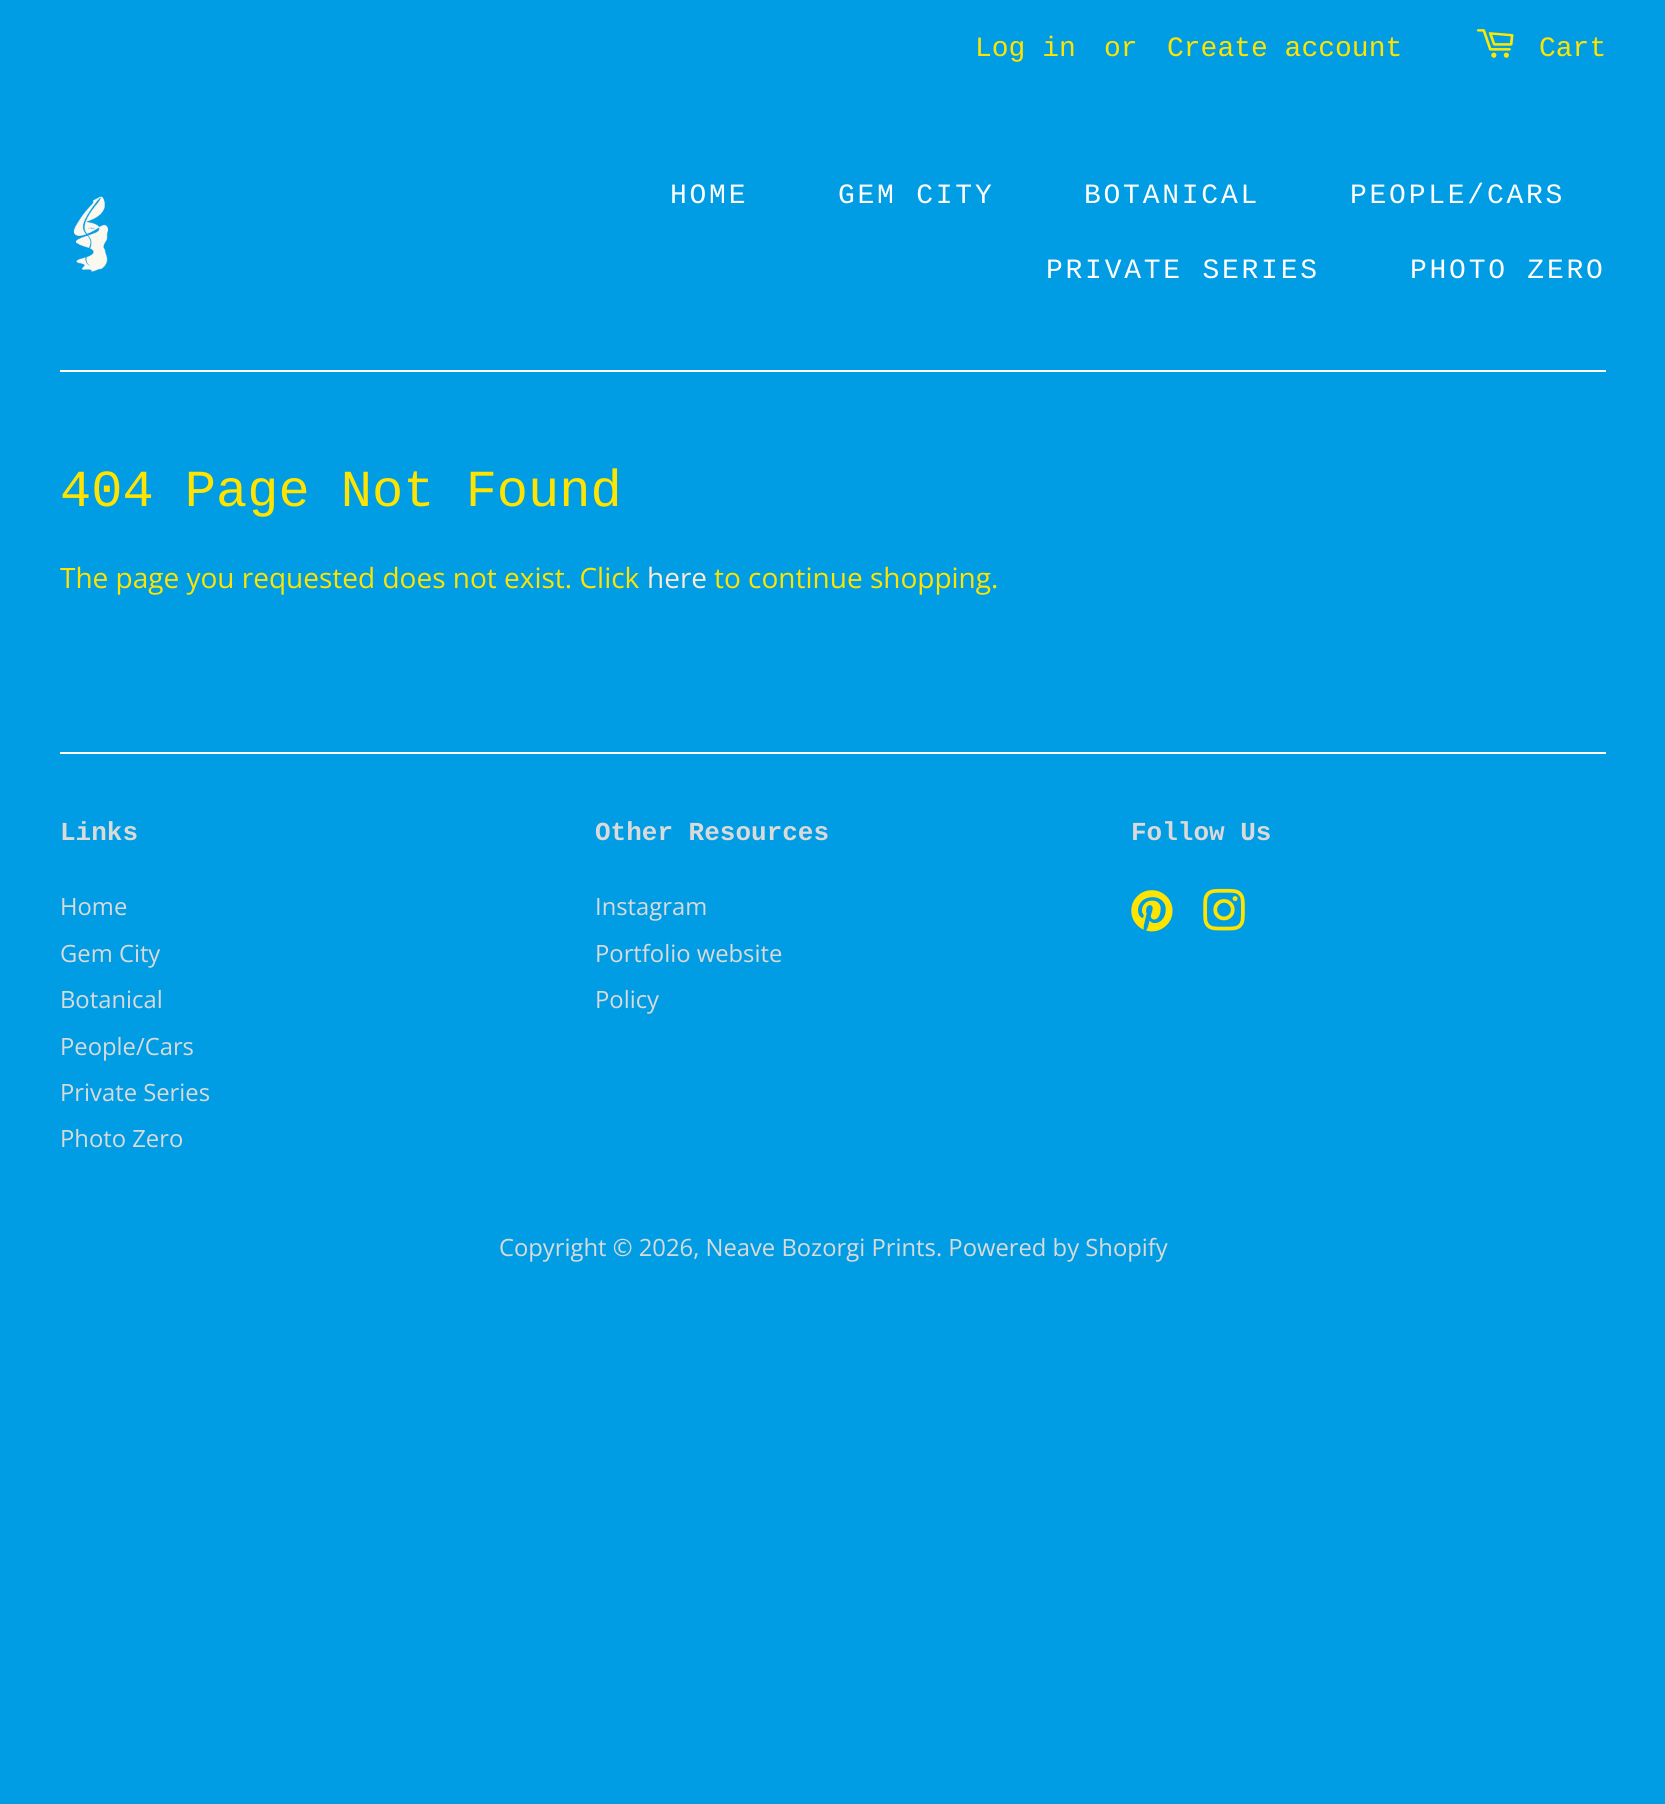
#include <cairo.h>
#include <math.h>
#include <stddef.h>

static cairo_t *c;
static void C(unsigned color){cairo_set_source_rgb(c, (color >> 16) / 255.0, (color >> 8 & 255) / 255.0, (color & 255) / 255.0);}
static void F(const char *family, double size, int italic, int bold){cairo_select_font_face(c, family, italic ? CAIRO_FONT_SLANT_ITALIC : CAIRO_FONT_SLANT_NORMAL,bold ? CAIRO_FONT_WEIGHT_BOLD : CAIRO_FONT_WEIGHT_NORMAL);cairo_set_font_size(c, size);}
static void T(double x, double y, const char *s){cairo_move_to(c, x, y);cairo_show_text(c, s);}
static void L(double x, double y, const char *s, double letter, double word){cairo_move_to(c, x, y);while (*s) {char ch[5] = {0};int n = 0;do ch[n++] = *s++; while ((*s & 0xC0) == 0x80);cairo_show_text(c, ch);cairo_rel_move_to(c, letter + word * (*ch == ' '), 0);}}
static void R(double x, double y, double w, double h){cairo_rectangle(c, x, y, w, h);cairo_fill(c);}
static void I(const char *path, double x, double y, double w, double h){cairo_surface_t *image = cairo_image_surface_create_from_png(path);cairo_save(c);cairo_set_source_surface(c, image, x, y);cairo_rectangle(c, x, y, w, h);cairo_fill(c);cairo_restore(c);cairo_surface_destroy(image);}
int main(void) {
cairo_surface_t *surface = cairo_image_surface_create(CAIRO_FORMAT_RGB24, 1665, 1804);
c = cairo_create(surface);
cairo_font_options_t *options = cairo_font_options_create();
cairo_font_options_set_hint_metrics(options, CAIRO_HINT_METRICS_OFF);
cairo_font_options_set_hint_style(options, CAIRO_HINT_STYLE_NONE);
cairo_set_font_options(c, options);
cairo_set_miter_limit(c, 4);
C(0x009de4);
cairo_paint(c);
F("Liberation Mono",28,0,0);
C(0xffe400);
T(975,56,"Log in");
T(1104,56,"or");
T(1167,56,"Create account");
I("1.png",1476,29,38,29);
T(1539,56,"Cart");
C(0xffffff);
R(60,370,1546,2);
I("2.png",73,196,36,78);
L(670,203,"HOME",2.75,0);
L(838,203,"GEM CITY",2.75,0);
L(1084,203,"BOTANICAL",2.75,0);
L(1350,203,"PEOPLE/CARS",2.75,0);
L(1046,278,"PRIVATE SERIES",2.75,0);
L(1410,278,"PHOTO ZERO",2.75,0);
F("Liberation Mono",52,0,0);
C(0xffe400);
T(60,506,"404 Page Not Found");
F("Open Sans",28,0,0);
T(60,588,"The page you requested does not exist. Click");
C(0xfcebd5);
T(647,588,"here");
C(0xffe400);
T(714,588,"to continue shopping.");
C(0xffffff);
R(60,752,1546,2);
F("Liberation Mono",26,0,1);
C(0xdadada);
T(60,840,"Links");
F("Open Sans",23.8,0,0);
T(60,915,"Home");
T(60,962,"Gem City");
T(60,1008,"Botanical");
T(60,1055,"People/Cars");
T(60,1101,"Private Series");
T(60,1147,"Photo Zero");
F("Liberation Mono",26,0,1);
T(595,840,"Other Resources");
F("Open Sans",23.8,0,0);
T(595,915,"Instagram");
T(595,962,"Portfolio website");
T(595,1008,"Policy");
F("Liberation Mono",26,0,1);
T(1131,840,"Follow Us");
I("3.png",1131,890,42,42);
I("4.png",1203,888,42,43);
F("Open Sans",23.8,0,0);
T(499,1256,"Copyright © 2026, Neave Bozorgi Prints. Powered by Shopify");
cairo_surface_write_to_png(surface, "o.png");
cairo_font_options_destroy(options);
cairo_destroy(c);
cairo_surface_destroy(surface);
return 0;
}
